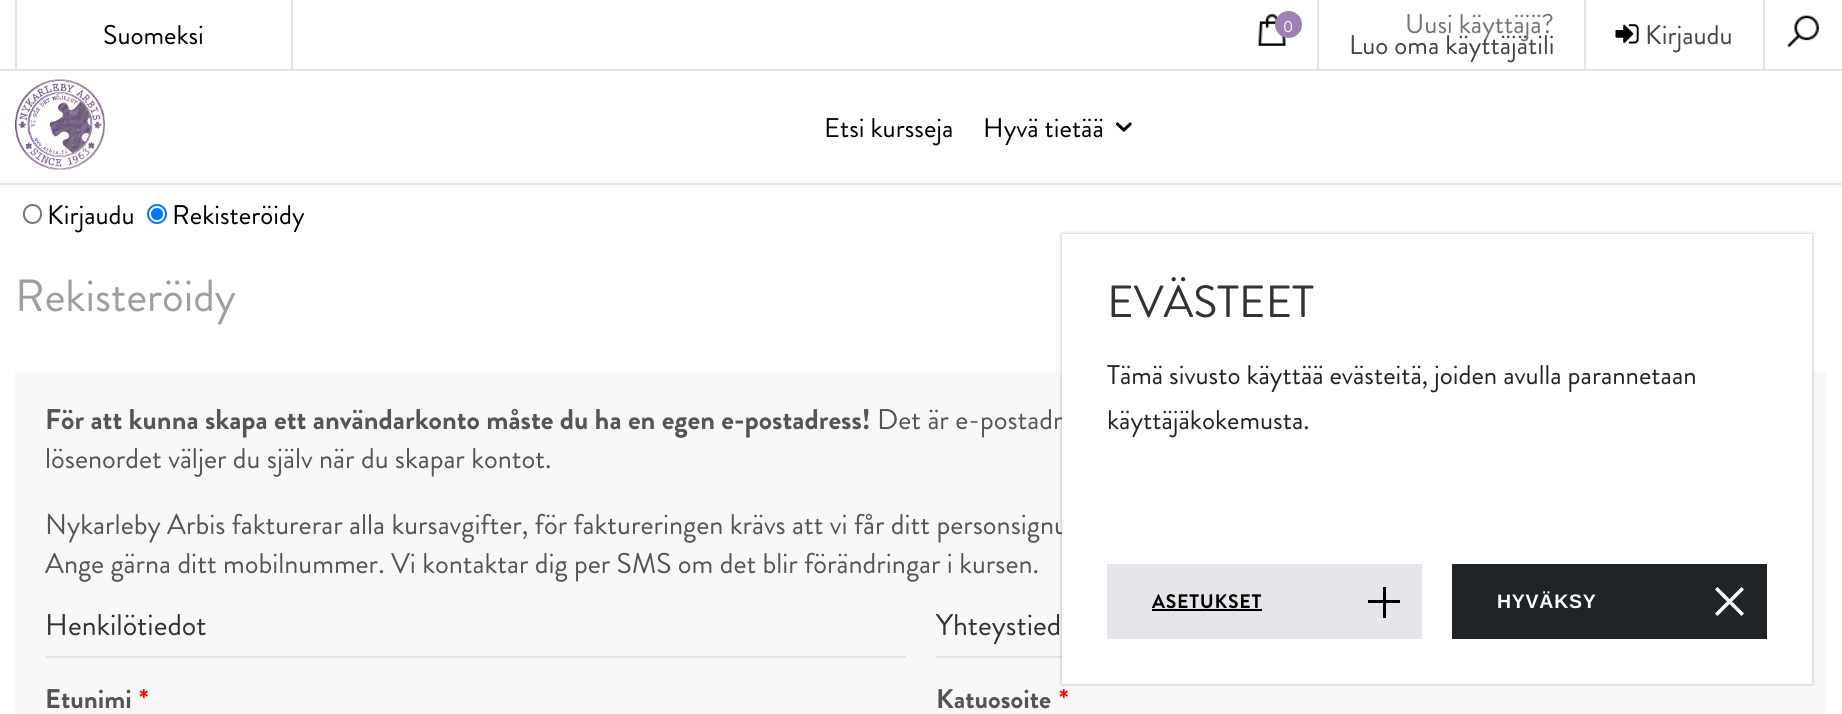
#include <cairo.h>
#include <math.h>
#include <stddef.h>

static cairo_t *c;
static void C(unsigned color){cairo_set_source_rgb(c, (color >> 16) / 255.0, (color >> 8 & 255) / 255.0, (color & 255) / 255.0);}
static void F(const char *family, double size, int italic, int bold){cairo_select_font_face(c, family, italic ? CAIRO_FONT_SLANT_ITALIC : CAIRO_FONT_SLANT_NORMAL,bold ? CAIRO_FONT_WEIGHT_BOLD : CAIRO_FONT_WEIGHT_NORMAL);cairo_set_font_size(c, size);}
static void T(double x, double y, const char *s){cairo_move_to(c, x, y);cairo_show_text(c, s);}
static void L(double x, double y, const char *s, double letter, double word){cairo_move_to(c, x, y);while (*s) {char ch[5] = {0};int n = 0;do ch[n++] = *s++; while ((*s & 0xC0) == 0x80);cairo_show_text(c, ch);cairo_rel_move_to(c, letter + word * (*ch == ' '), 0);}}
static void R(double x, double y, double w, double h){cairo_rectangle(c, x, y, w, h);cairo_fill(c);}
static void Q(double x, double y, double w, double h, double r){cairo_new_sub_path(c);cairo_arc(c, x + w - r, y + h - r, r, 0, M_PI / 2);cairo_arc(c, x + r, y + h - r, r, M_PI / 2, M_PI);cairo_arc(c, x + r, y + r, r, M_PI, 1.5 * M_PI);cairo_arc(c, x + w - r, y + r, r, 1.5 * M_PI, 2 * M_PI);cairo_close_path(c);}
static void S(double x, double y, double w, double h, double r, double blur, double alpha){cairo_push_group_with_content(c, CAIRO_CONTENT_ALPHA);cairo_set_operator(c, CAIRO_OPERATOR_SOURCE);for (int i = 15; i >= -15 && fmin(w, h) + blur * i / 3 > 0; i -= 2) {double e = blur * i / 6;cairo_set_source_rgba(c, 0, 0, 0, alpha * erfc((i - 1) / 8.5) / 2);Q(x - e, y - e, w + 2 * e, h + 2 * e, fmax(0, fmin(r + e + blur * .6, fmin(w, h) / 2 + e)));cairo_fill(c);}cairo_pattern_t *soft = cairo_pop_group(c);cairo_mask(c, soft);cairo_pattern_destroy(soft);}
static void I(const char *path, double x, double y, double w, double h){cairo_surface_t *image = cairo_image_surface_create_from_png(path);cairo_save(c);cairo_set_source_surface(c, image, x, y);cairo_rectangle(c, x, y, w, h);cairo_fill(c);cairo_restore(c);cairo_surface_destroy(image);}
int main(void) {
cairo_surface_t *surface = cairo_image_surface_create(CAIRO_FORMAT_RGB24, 1842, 714);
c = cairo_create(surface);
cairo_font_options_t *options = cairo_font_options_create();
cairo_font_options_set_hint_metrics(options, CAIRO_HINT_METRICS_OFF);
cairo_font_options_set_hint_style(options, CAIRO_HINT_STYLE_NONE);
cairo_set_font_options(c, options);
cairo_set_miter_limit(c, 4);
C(0xffffff);
cairo_paint(c);
C(0xe5e5e5);
R(0,183,1842,2);
R(291,0,2,69);
R(15,0,2,69);
F("Brandon Grotesque",27,0,0);
C(0x000000);
T(103,44,"Suomeksi");
I("1.png",1258,14,28,32);
C(0x9e81b5);
cairo_arc(c,1288.5,24.5,13.5,0,2 * M_PI);
cairo_fill(c);
F("Brandon Grotesque",16,0,0);
C(0xffffff);
T(1283,32,"0");
C(0xe5e5e5);
R(1317,0,2,69);
F("Brandon Grotesque",27,0,0);
C(0x747474);
T(1405,33,"Uusi käyttäjä?");
C(0x444444);
T(1349,54,"Luo oma käyttäjätili");
C(0xe5e5e5);
R(1763,0,2,69);
R(1584,0,2,69);
I("2.png",1615,24,24,20);
C(0x444444);
T(1645,44,"Kirjaudu");
I("3.png",1787,15,32,33);
C(0xe5e5e5);
R(0,69,1842,2);
I("4.png",15,79,90,91);
C(0x000000);
T(824,137,"Etsi kursseja");
T(983,137,"Hyvä tietää");
I("5.png",1116,122,16,10);
Q(24,205,17,18,8.5);
C(0x767676);
cairo_stroke(c);
C(0x000000);
T(47,224,"Kirjaudu");
cairo_new_path(c);
cairo_arc(c,157,214,9,0,2 * M_PI);
C(0x0075ff);
cairo_stroke(c);
cairo_arc(c,157,214,6,0,2 * M_PI);
cairo_fill(c);
C(0x000000);
T(172,224,"Rekisteröidy");
F("Brandon Grotesque",45,0,0);
C(0x9e9e9e);
T(15,311,"Rekisteröidy");
C(0xf8f8f8);
R(15,371,1812,343);
F("Brandon Grotesque",28.5,0,1);
C(0x555555);
T(45,429,"För att kunna skapa ett användarkonto måste du ha en egen e-postadress!");
F("Brandon Grotesque",28.5,0,0);
T(877,429,"Det är e-postadr");
T(45,468,"lösenordet väljer du själv när du skapar kontot.");
T(45,534,"Nykarleby Arbis fakturerar alla kursavgifter, för faktureringen krävs att vi får ditt personsignu");
T(45,573,"Ange gärna ditt mobilnummer. Vi kontaktar dig per SMS om det blir förändringar i kursen.");
C(0xe4e4e4);
R(45,656,861,2);
F("Brandon Grotesque",30,0,0);
C(0x333333);
T(45,635,"Henkilötiedot");
F("Brandon Grotesque",27,0,1);
C(0x555555);
T(45,708,"Etunimi");
C(0xff0000);
T(139,708,"*");
C(0xe4e4e4);
R(936,656,126,2);
F("Brandon Grotesque",30,0,0);
C(0x333333);
T(936,635,"Yhteystied");
F("Brandon Grotesque",27,0,1);
C(0x555555);
T(936,708,"Katuosoite");
C(0xff0000);
T(1059,708,"*");
C(0x000000);
S(1062,234,750,450,0,2,.29);
C(0xffffff);
R(1062,234,750,450);
F("Brandon Grotesque",45,0,0);
C(0x333333);
T(1107,317,"EVÄSTEET");
F("Brandon Grotesque",27,0,0);
C(0x212427);
T(1107,384,"Tämä sivusto käyttää evästeitä, joiden avulla parannetaan");
T(1107,429,"käyttäjäkokemusta.");
C(0xe4e6e9);
R(1107,564,315,75);
F("Brandon Grotesque",19.5,0,1);
C(0x000000);
L(1152,608,"ASETUKSET",.75,0);
R(1152,609,110,2);
R(1383,587,3,31);
R(1368,600,32,3);
C(0x212427);
R(1452,564,315,75);
F("Liberation Sans",19.5,0,1);
C(0xffffff);
L(1497,608,"HYVÄKSY",.75,0);
cairo_new_path(c);
cairo_move_to(c,1741.5,587);
cairo_line_to(c,1744,589.5);
cairo_line_to(c,1717.5,616);
cairo_line_to(c,1715,613.5);
cairo_close_path(c);
cairo_fill(c);
cairo_new_path(c);
cairo_move_to(c,1717.5,587);
cairo_line_to(c,1744,613.5);
cairo_line_to(c,1741.5,616);
cairo_line_to(c,1715,589.5);
cairo_close_path(c);
cairo_fill(c);
cairo_surface_write_to_png(surface, "o.png");
cairo_font_options_destroy(options);
cairo_destroy(c);
cairo_surface_destroy(surface);
return 0;
}
